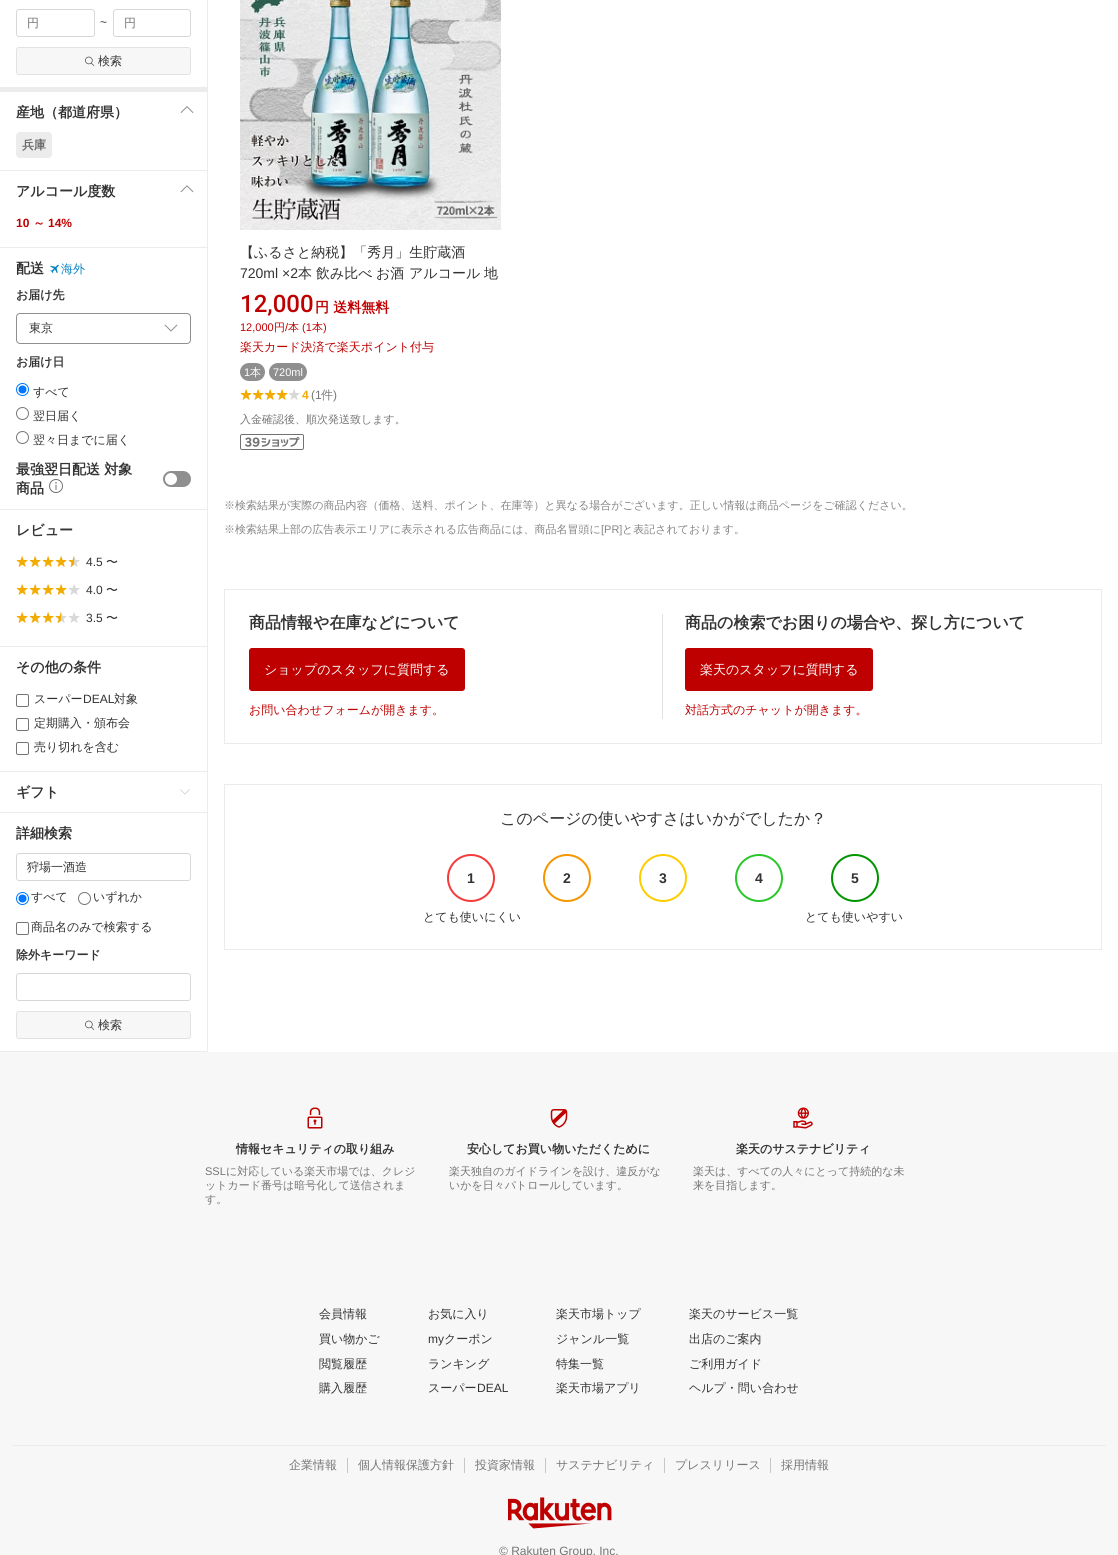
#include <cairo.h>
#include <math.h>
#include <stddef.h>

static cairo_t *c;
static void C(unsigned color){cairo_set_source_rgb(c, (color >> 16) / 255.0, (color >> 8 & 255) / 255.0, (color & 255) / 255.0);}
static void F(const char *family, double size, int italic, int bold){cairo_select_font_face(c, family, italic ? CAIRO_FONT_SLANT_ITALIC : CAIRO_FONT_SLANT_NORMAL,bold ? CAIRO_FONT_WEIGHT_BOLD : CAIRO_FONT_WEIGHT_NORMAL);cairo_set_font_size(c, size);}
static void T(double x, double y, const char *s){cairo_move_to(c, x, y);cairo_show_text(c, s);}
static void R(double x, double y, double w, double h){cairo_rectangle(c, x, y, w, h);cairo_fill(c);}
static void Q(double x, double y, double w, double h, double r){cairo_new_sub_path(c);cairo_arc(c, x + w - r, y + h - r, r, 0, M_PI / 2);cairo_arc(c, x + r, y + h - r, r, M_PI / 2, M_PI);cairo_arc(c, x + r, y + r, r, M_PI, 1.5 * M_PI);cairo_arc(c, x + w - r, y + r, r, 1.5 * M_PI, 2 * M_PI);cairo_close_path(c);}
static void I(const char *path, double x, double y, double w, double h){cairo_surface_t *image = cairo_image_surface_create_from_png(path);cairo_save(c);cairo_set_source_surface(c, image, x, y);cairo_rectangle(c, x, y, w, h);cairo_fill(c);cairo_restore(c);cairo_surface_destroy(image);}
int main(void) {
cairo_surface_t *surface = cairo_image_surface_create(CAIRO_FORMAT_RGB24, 1118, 1555);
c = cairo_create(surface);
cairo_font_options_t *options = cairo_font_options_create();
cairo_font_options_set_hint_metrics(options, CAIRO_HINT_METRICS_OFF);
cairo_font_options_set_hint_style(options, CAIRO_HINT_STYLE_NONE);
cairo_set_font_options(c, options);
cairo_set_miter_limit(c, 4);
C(0xf7f7f7);
cairo_paint(c);
C(0xffffff);
R(0,0,1118,1052);
C(0xececec);
R(207,0,1,1052);
R(0,1051,208,1);
Q(16.5,9.5,78,27,2.5);
C(0xd8d8d8);
cairo_set_line_width(c,1);
cairo_stroke(c);
F("WenQuanYi Zen Hei Medium",12,0,0);
C(0x757575);
T(27,27,"円");
F("Liberation Sans",12,0,0);
C(0x333333);
T(100,26,"~");
Q(113.5,9.5,77,27,2.5);
C(0xd8d8d8);
cairo_stroke(c);
F("WenQuanYi Zen Hei Medium",12,0,0);
C(0x757575);
T(124,27,"円");
C(0xf7f7f7);
Q(16.5,47.5,174,27,2.5);
cairo_fill_preserve(c);
C(0xe2e2e2);
cairo_stroke(c);
I("1.png",85,56,10,10);
C(0x333333);
T(98,65,"検索");
C(0xececec);
R(0,87,207,5);
F("WenQuanYi Zen Hei",14,0,1);
C(0x333333);
T(16,117,"産地（都道府県）");
I("2.png",180,106,14,7);
C(0xececec);
Q(16.5,132.5,35,25,3.5);
cairo_fill_preserve(c);
cairo_stroke(c);
F("WenQuanYi Zen Hei",12,0,1);
C(0x666666);
T(22,149,"兵庫");
C(0xececec);
R(0,170,207,1);
F("WenQuanYi Zen Hei",14,0,1);
C(0x333333);
T(16,196,"アルコール度数");
I("3.png",180,185,14,8);
F("Liberation Sans",12,0,1);
C(0xbf0000);
T(16,227,"10");
F("WenQuanYi Zen Hei",12,0,1);
T(33,227,"～");
F("Liberation Sans",12,0,1);
T(48,227,"14%");
C(0xececec);
R(0,247,207,1);
F("WenQuanYi Zen Hei",14,0,1);
C(0x333333);
T(16,273,"配送");
I("4.png",50,264,9,10);
F("WenQuanYi Zen Hei Medium",12,0,0);
C(0x0783c2);
T(61,273,"海外");
F("WenQuanYi Zen Hei",12,0,1);
C(0x333333);
T(16,299,"お届け先");
Q(16.5,313.5,174,30,3.5);
C(0x8f8f8f);
cairo_stroke(c);
F("WenQuanYi Zen Hei Medium",12,0,0);
C(0x333333);
T(29,332,"東京");
I("5.png",164,324,14,8);
F("WenQuanYi Zen Hei",12,0,1);
T(16,366,"お届け日");
cairo_new_path(c);
cairo_arc(c,22.5,389.5,6,0,2 * M_PI);
C(0x0075ff);
cairo_stroke(c);
cairo_arc(c,22.5,389.5,4,0,2 * M_PI);
cairo_fill(c);
F("WenQuanYi Zen Hei Medium",12,0,0);
C(0x333333);
T(33,396,"すべて");
cairo_new_path(c);
cairo_arc(c,22.5,413.5,6,0,2 * M_PI);
C(0x767676);
cairo_stroke(c);
C(0x333333);
T(33,420,"翌日届く");
cairo_new_path(c);
cairo_arc(c,22.5,437.5,6,0,2 * M_PI);
C(0x767676);
cairo_stroke(c);
C(0x333333);
T(33,444,"翌々日までに届く");
F("WenQuanYi Zen Hei",14,0,1);
T(16,474,"最強翌日配送 対象");
T(16,493,"商品");
I("6.png",49,479,14,14);
C(0x8f8f8f);
Q(164,472,26,14,7);
cairo_fill_preserve(c);
cairo_set_line_width(c,2);
cairo_stroke(c);
C(0xffffff);
cairo_arc(c,171,479,6,0,2 * M_PI);
cairo_fill(c);
C(0xececec);
R(0,509,207,1);
C(0x333333);
T(16,535,"レビュー");
I("7.png",16,556,12,11);
I("7.png",29,556,12,11);
I("7.png",42,556,12,11);
I("7.png",55,556,12,11);
I("8.png",68,556,12,11);
I("9.png",68,556,7,11);
F("Liberation Sans",12,0,0);
T(86,566,"4.5");
F("WenQuanYi Zen Hei Medium",12,0,0);
T(106,566,"〜");
I("7.png",16,584,12,11);
I("7.png",29,584,12,11);
I("7.png",42,584,12,11);
I("7.png",55,584,12,11);
I("8.png",68,584,12,11);
F("Liberation Sans",12,0,0);
T(86,594,"4.0");
F("WenQuanYi Zen Hei Medium",12,0,0);
T(106,594,"〜");
I("7.png",16,612,12,11);
I("7.png",29,612,12,11);
I("7.png",42,612,12,11);
I("8.png",55,612,12,11);
I("9.png",55,612,7,11);
I("8.png",68,612,12,11);
F("Liberation Sans",12,0,0);
T(86,622,"3.5");
F("WenQuanYi Zen Hei Medium",12,0,0);
T(106,622,"〜");
C(0xececec);
R(0,646,207,1);
F("WenQuanYi Zen Hei",14,0,1);
C(0x333333);
T(16,672,"その他の条件");
Q(16.5,694.5,12,12,1.5);
C(0x767676);
cairo_set_line_width(c,1);
cairo_stroke(c);
F("WenQuanYi Zen Hei Medium",12,0,0);
C(0x333333);
T(34,703,"スーパー");
F("Liberation Sans",12,0,0);
T(83,703,"DEAL");
F("WenQuanYi Zen Hei Medium",12,0,0);
T(114,703,"対象");
Q(16.5,718.5,12,12,1.5);
C(0x767676);
cairo_stroke(c);
C(0x333333);
T(34,727,"定期購入・頒布会");
Q(16.5,742.5,12,12,1.5);
C(0x767676);
cairo_stroke(c);
C(0x333333);
T(34,751,"売り切れを含む");
C(0xececec);
R(0,771,207,1);
F("WenQuanYi Zen Hei",14,0,1);
C(0x333333);
T(16,797,"ギフト");
I("10.png",180,789,10,6);
C(0xececec);
R(0,812,207,1);
C(0x333333);
T(16,838,"詳細検索");
Q(16.5,853.5,174,27,2.5);
C(0xd8d8d8);
cairo_stroke(c);
F("WenQuanYi Zen Hei Medium",12,0,0);
C(0x333333);
T(27,871,"狩場一酒造");
cairo_new_path(c);
cairo_arc(c,22.5,898.5,6,0,2 * M_PI);
C(0x0075ff);
cairo_stroke(c);
cairo_arc(c,22.5,898.5,4,0,2 * M_PI);
cairo_fill(c);
C(0x333333);
T(31,901,"すべて");
cairo_new_path(c);
cairo_arc(c,84.5,898.5,6,0,2 * M_PI);
C(0x767676);
cairo_stroke(c);
C(0x333333);
T(93,901,"いずれか");
Q(16.5,922.5,12,12,1.5);
C(0x767676);
cairo_stroke(c);
C(0x333333);
T(31,931,"商品名のみで検索する");
F("WenQuanYi Zen Hei",12,0,1);
T(16,959,"除外キーワード");
Q(16.5,973.5,174,27,2.5);
C(0xd8d8d8);
cairo_stroke(c);
C(0xf7f7f7);
Q(16.5,1011.5,174,27,2.5);
cairo_fill_preserve(c);
C(0xe2e2e2);
cairo_stroke(c);
I("1.png",85,1020,10,10);
F("WenQuanYi Zen Hei Medium",12,0,0);
C(0x333333);
T(98,1029,"検索");
I("11.png",240,0,261,230);
F("WenQuanYi Zen Hei Medium",14,0,0);
T(240,257,"【ふるさと納税】「秀月」生貯蔵酒");
F("Liberation Sans",14,0,0);
T(240,278,"720ml ×2");
F("WenQuanYi Zen Hei Medium",14,0,0);
T(298,278,"本");
T(316,278,"飲み比べ");
T(376,278,"お酒");
T(409,278,"アルコール");
T(484,278,"地");
F("Roboto Medium",24,0,0);
C(0xbf0000);
T(240,312,"12,000");
F("WenQuanYi Zen Hei",14,0,1);
T(315,312,"円 送料無料");
F("Liberation Sans",11,0,0);
T(240,331,"12,000");
F("WenQuanYi Zen Hei Medium",11,0,0);
T(274,331,"円");
F("Liberation Sans",11,0,0);
T(285,331,"/");
F("WenQuanYi Zen Hei Medium",11,0,0);
T(288,331,"本");
F("Liberation Sans",11,0,0);
T(302,331,"(1");
F("WenQuanYi Zen Hei Medium",11,0,0);
T(312,331,"本");
F("Liberation Sans",11,0,0);
T(323,331,")");
F("WenQuanYi Zen Hei Medium",12,0,0);
T(240,351,"楽天カード決済で楽天ポイント付与");
C(0x8f8f8f);
Q(240,363,25,18,9);
cairo_fill(c);
F("Liberation Sans",11,0,0);
C(0xffffff);
T(244,376,"1");
F("WenQuanYi Zen Hei Medium",11,0,0);
T(250,376,"本");
C(0x8f8f8f);
Q(269,363,38,18,9);
cairo_fill(c);
F("Liberation Sans",11,0,0);
C(0xffffff);
T(273,376,"720ml");
I("7.png",240,389,12,11);
I("7.png",252,389,12,11);
I("7.png",264,389,12,11);
I("7.png",276,389,12,11);
I("8.png",288,389,12,11);
F("Liberation Sans",12,0,1);
C(0xf2ab00);
T(302,399,"4");
F("Liberation Sans",12,0,0);
C(0x757575);
T(311,399,"(1");
F("WenQuanYi Zen Hei Medium",12,0,0);
T(321,399,"件");
F("Liberation Sans",12,0,0);
T(333,399,")");
F("WenQuanYi Zen Hei Medium",11,0,0);
T(240,423,"入金確認後、順次発送致します。");
I("12.png",240,434,64,16);
C(0x848484);
T(224,509,"※検索結果が実際の商品内容（価格、送料、ポイント、在庫等）と異なる場合がございます。正しい情報は商品ページをご確認ください。");
T(224,533,"※検索結果上部の広告表示エリアに表示される広告商品には、商品名冒頭に");
F("Liberation Sans",11,0,0);
T(601,533,"[PR]");
F("WenQuanYi Zen Hei Medium",11,0,0);
T(622,533,"と表記されております。");
cairo_rectangle(c,224.5,589.5,877,154);
C(0xebebeb);
cairo_stroke(c);
C(0xe2e2e2);
R(662,614,1,105);
F("WenQuanYi Zen Hei",16,0,1);
C(0x333333);
T(249,628,"商品情報や在庫などについて");
C(0xbf0000);
Q(249.5,648.5,215,42,2.5);
cairo_fill_preserve(c);
cairo_stroke(c);
F("WenQuanYi Zen Hei Medium",13,0,0);
C(0xffffff);
T(264,674,"ショップのスタッフに質問する");
F("WenQuanYi Zen Hei Medium",12,0,0);
C(0xbf0000);
T(249,714,"お問い合わせフォームが開きます。");
F("WenQuanYi Zen Hei",16,0,1);
C(0x333333);
T(685,628,"商品の検索でお困りの場合や、探し方について");
C(0xbf0000);
Q(685.5,648.5,187,42,2.5);
cairo_fill_preserve(c);
cairo_stroke(c);
F("WenQuanYi Zen Hei Medium",13,0,0);
C(0xffffff);
T(700,674,"楽天のスタッフに質問する");
F("WenQuanYi Zen Hei Medium",12,0,0);
C(0xbf0000);
T(685,714,"対話方式のチャットが開きます。");
cairo_rectangle(c,224.5,784.5,877,165);
C(0xebebeb);
cairo_stroke(c);
F("WenQuanYi Zen Hei Medium",16,0,0);
C(0x333333);
T(500,824,"このページの使いやすさはいかがでしたか？");
cairo_new_path(c);
cairo_arc(c,471,878,23,0,2 * M_PI);
C(0xf53a3a);
cairo_set_line_width(c,2);
cairo_stroke(c);
F("Liberation Sans",14,0,1);
C(0x333333);
T(467,883,"1");
cairo_new_path(c);
cairo_arc(c,567,878,23,0,2 * M_PI);
C(0xf59600);
cairo_stroke(c);
C(0x333333);
T(563,883,"2");
cairo_new_path(c);
cairo_arc(c,663,878,23,0,2 * M_PI);
C(0xffcc00);
cairo_stroke(c);
C(0x333333);
T(659,883,"3");
cairo_new_path(c);
cairo_arc(c,759,878,23,0,2 * M_PI);
C(0x2ac72a);
cairo_stroke(c);
C(0x333333);
T(755,883,"4");
cairo_new_path(c);
cairo_arc(c,855,878,23,0,2 * M_PI);
C(0x009500);
cairo_stroke(c);
C(0x333333);
T(851,883,"5");
F("WenQuanYi Zen Hei Medium",12,0,0);
T(423,921,"とても使いにくい");
T(805,921,"とても使いやすい");
I("13.png",307,1107,16,22);
F("WenQuanYi Zen Hei",12,0,1);
T(236,1153,"情報セキュリティの取り組み");
F("Liberation Sans",11,0,0);
C(0x757575);
T(205,1175,"SSL");
F("WenQuanYi Zen Hei Medium",11,0,0);
T(226,1175,"に対応している楽天市場では、クレジ");
T(205,1189,"ットカード番号は暗号化して送信されま");
T(205,1203,"す。");
I("14.png",550,1109,18,19);
F("WenQuanYi Zen Hei",12,0,1);
C(0x333333);
T(467,1153,"安心してお買い物いただくために");
F("WenQuanYi Zen Hei Medium",11,0,0);
C(0x757575);
T(449,1175,"楽天独自のガイドラインを設け、違反がな");
T(449,1189,"いかを日々パトロールしています。");
I("15.png",793,1107,20,22);
F("WenQuanYi Zen Hei",12,0,1);
C(0x333333);
T(736,1153,"楽天のサステナビリティ");
F("WenQuanYi Zen Hei Medium",11,0,0);
C(0x757575);
T(693,1175,"楽天は、すべての人々にとって持続的な未");
T(693,1189,"来を目指します。");
C(0xebebeb);
R(12,1445,1094,1);
F("WenQuanYi Zen Hei Medium",12,0,0);
C(0x333333);
T(319,1318,"会員情報");
T(319,1343,"買い物かご");
T(319,1368,"閲覧履歴");
T(319,1392,"購入履歴");
T(428,1318,"お気に入り");
F("Liberation Sans",12,0,0);
T(428,1343,"my");
F("WenQuanYi Zen Hei Medium",12,0,0);
T(444,1343,"クーポン");
T(428,1368,"ランキング");
T(428,1392,"スーパー");
F("Liberation Sans",12,0,0);
T(477,1392,"DEAL");
F("WenQuanYi Zen Hei Medium",12,0,0);
T(556,1318,"楽天市場トップ");
T(556,1343,"ジャンル一覧");
T(556,1368,"特集一覧");
T(556,1392,"楽天市場アプリ");
T(689,1318,"楽天のサービス一覧");
T(689,1343,"出店のご案内");
T(689,1368,"ご利用ガイド");
T(689,1392,"ヘルプ・問い合わせ");
C(0xc6c6c6);
R(347,1458,1,15);
C(0x757575);
T(289,1469,"企業情報");
C(0xc6c6c6);
R(464,1458,1,15);
C(0x757575);
T(358,1469,"個人情報保護方針");
C(0xc6c6c6);
R(545,1458,1,15);
C(0x757575);
T(475,1469,"投資家情報");
C(0xc6c6c6);
R(664,1458,1,15);
C(0x757575);
T(556,1469,"サステナビリティ");
C(0xc6c6c6);
R(770,1458,1,15);
C(0x757575);
T(675,1469,"プレスリリース");
T(781,1469,"採用情報");
I("16.png",508,1497,104,32);
F("Liberation Sans",12,0,0);
T(499,1555,"© Rakuten Group, Inc.");
cairo_surface_write_to_png(surface, "o.png");
cairo_font_options_destroy(options);
cairo_destroy(c);
cairo_surface_destroy(surface);
return 0;
}
